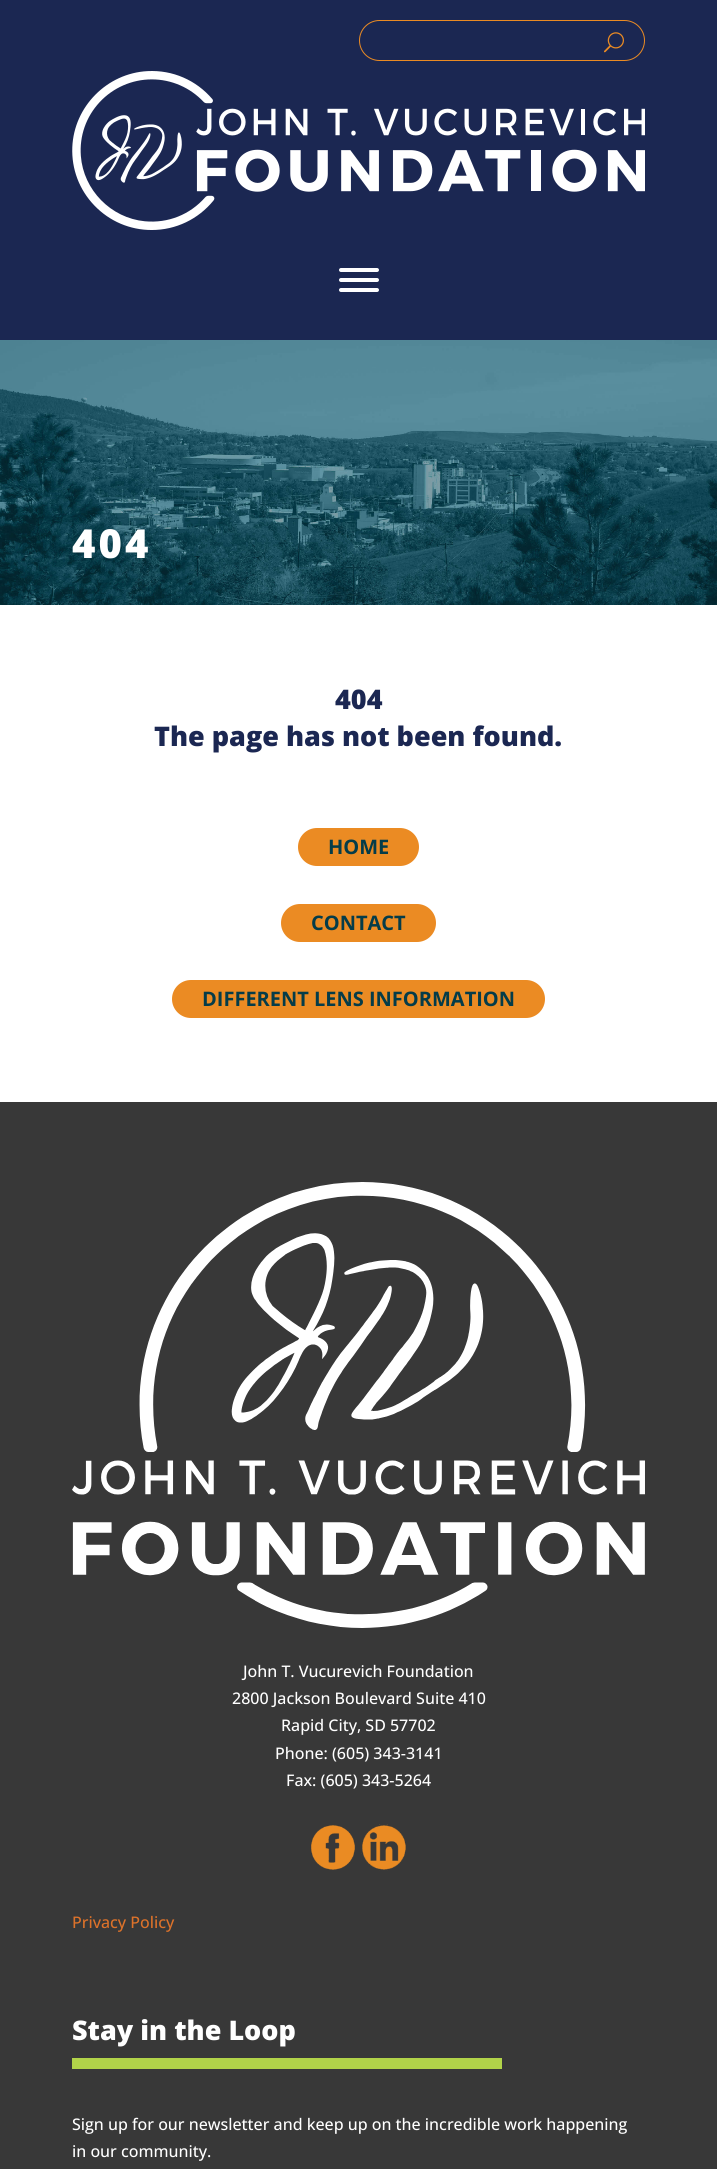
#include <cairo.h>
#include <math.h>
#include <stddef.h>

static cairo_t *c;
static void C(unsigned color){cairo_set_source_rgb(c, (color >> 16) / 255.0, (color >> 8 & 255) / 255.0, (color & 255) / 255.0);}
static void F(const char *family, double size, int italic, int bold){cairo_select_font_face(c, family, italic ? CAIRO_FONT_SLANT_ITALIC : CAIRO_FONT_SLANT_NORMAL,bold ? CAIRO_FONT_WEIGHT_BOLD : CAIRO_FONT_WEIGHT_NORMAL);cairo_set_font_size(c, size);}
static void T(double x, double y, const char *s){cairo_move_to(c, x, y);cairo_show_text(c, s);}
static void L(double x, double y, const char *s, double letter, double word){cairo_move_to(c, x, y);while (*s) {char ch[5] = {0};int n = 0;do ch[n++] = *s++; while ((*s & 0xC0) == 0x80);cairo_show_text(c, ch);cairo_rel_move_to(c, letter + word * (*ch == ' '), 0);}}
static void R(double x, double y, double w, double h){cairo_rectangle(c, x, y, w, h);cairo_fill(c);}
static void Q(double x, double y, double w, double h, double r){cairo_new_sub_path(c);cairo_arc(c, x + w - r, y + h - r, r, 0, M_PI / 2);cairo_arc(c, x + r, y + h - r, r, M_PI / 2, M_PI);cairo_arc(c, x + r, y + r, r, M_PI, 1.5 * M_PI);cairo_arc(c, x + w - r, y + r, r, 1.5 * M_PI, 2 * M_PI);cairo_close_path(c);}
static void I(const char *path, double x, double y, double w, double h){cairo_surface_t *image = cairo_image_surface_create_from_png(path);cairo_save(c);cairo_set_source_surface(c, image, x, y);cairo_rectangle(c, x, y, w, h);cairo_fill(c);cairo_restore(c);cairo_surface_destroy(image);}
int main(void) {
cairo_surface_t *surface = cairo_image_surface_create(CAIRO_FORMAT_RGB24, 717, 2169);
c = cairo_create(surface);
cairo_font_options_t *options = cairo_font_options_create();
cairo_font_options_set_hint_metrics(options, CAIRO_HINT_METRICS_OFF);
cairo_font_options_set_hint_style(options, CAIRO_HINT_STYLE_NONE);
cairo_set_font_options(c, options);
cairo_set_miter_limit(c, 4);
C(0xffffff);
cairo_paint(c);
C(0x1b2752);
R(0,0,717,340);
Q(359.5,20.5,285,40,20);
C(0xeb8b23);
cairo_set_line_width(c,1);
cairo_stroke(c);
I("1.png",604,32,20,21);
I("2.png",72,71,573,159);
C(0xffffff);
Q(339,268,40,4,2);
cairo_fill(c);
Q(339,278,40,4,2);
cairo_fill(c);
Q(339,288,40,4,2);
cairo_fill(c);
I("3.png",0,340,717,265);
F("Open Sans ExtraBold",40,0,0);
L(72,558,"404",3,0);
F("Open Sans ExtraBold",27,0,0);
C(0x1b2752);
T(335,709,"404");
T(154,746,"The page has not been found.");
C(0xeb8b23);
Q(296,826,125,42,21);
cairo_fill_preserve(c);
C(0xffffff);
cairo_set_line_width(c,4);
cairo_stroke(c);
F("Open Sans",20,0,1);
C(0x043c49);
T(328,854,"HOME");
C(0xeb8b23);
Q(279,902,159,42,21);
cairo_fill_preserve(c);
C(0xffffff);
cairo_stroke(c);
C(0x043c49);
T(311,930,"CONTACT");
C(0xeb8b23);
Q(170,978,377,42,21);
cairo_fill_preserve(c);
C(0xffffff);
cairo_stroke(c);
C(0x043c49);
T(202,1006,"DIFFERENT LENS INFORMATION");
C(0x383838);
R(0,1102,717,1067);
I("4.png",72,1182,573,446);
F("Open Sans Medium",16,0,0);
C(0xffffff);
T(243,1677,"John T. Vucurevich Foundation");
T(232,1704,"2800 Jackson Boulevard Suite 410");
T(281,1731,"Rapid City, SD 57702");
T(275,1759,"Phone: (605) 343-3141");
T(286,1786,"Fax: (605) 343-5264");
I("5.png",311,1825,44,45);
I("6.png",361,1824,45,47);
C(0xdd722a);
T(72,1928,"Privacy Policy");
F("Open Sans ExtraBold",27,0,0);
C(0xffffff);
T(72,2040,"Stay in the Loop");
C(0xb1d349);
R(72,2058,430,11);
F("Open Sans Medium",16,0,0);
C(0xffffff);
T(72,2130,"Sign up for our newsletter and keep up on the incredible work happening");
T(72,2157,"in our community.");
cairo_surface_write_to_png(surface, "o.png");
cairo_font_options_destroy(options);
cairo_destroy(c);
cairo_surface_destroy(surface);
return 0;
}
